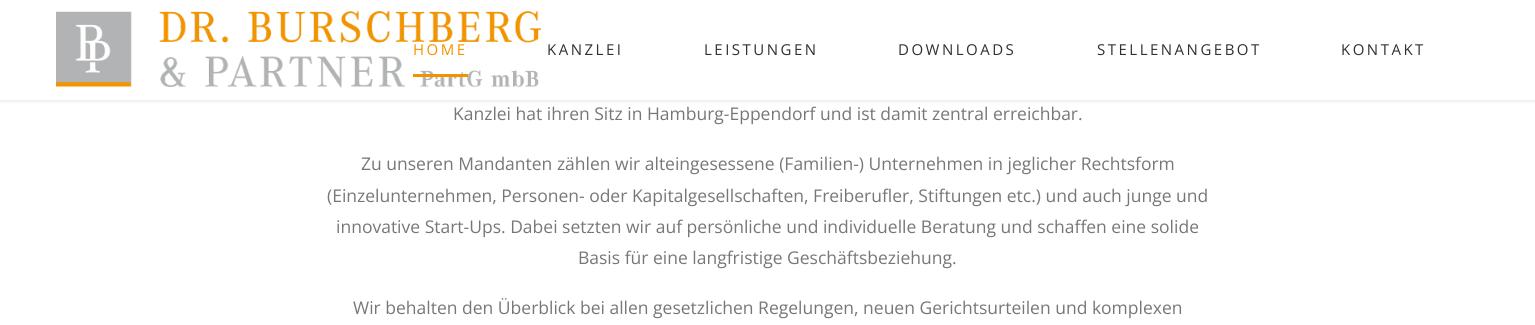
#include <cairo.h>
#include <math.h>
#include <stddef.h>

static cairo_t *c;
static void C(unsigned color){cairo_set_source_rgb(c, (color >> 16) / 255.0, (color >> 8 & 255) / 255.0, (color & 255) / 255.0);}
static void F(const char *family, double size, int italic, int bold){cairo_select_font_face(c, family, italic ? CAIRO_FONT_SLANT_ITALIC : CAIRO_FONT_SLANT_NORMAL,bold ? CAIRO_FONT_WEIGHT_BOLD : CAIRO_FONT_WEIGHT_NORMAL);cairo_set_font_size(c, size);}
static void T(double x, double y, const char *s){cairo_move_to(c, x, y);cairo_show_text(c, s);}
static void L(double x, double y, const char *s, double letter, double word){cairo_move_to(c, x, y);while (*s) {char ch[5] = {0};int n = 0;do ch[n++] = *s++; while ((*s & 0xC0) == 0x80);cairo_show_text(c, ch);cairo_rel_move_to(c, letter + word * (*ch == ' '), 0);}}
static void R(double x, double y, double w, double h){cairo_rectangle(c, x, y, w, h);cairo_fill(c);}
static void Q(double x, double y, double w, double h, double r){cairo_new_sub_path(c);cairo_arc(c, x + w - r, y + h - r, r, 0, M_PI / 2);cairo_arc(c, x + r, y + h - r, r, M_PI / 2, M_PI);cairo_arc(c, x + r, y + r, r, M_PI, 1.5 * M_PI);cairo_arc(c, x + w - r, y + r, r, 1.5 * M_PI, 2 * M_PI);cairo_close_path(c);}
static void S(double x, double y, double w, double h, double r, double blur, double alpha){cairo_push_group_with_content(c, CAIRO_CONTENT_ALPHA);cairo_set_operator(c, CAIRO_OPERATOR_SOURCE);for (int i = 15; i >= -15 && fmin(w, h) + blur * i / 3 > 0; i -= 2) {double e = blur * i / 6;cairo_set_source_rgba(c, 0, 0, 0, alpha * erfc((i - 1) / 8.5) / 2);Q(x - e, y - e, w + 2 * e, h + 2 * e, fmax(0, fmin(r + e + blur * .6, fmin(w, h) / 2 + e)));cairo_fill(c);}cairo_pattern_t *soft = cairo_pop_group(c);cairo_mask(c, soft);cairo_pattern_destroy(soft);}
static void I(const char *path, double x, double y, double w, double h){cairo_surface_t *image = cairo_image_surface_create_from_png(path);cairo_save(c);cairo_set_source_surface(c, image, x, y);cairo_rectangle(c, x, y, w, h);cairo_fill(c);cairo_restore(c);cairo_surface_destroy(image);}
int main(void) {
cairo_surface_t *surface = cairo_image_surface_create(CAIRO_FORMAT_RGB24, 1535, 325);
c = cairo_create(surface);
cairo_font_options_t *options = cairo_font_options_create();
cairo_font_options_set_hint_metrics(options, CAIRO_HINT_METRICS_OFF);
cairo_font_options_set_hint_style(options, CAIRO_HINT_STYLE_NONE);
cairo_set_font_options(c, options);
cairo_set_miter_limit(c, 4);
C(0xffffff);
cairo_paint(c);
C(0x000000);
S(0,1,1535,100,0,2,.11);
C(0xffffff);
R(0,0,1535,100);
I("1.png",56,11,485,77);
C(0xf39200);
R(413,74,55,3);
F("Open Sans",15,0,0);
L(413,55,"HOME",2.5,0);
C(0x303030);
L(547,55,"KANZLEI",2.5,0);
L(704,55,"LEISTUNGEN",2.5,0);
L(898,55,"DOWNLOADS",2.5,0);
L(1097,55,"STELLENANGEBOT",2.5,0);
L(1341,55,"KONTAKT",2.5,0);
F("Open Sans",17.5,0,0);
C(0x777777);
T(453,120,"Kanzlei hat ihren Sitz in Hamburg-Eppendorf und ist damit zentral erreichbar.");
T(361,170,"Zu unseren Mandanten zählen wir alteingesessene (Familien-) Unternehmen in jeglicher Rechtsform");
T(327,202,"(Einzelunternehmen, Personen- oder Kapitalgesellschaften, Freiberufler, Stiftungen etc.) und auch junge und");
T(336,233,"innovative Start-Ups. Dabei setzten wir auf persönliche und individuelle Beratung und schaffen eine solide");
T(578,264,"Basis für eine langfristige Geschäftsbeziehung.");
T(353,314,"Wir behalten den Überblick bei allen gesetzlichen Regelungen, neuen Gerichtsurteilen und komplexen");
cairo_surface_write_to_png(surface, "o.png");
cairo_font_options_destroy(options);
cairo_destroy(c);
cairo_surface_destroy(surface);
return 0;
}
